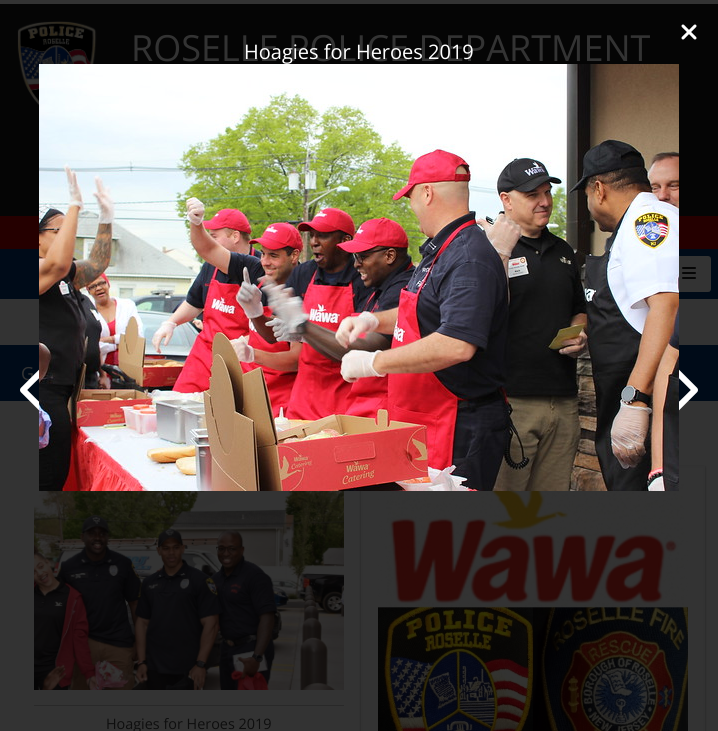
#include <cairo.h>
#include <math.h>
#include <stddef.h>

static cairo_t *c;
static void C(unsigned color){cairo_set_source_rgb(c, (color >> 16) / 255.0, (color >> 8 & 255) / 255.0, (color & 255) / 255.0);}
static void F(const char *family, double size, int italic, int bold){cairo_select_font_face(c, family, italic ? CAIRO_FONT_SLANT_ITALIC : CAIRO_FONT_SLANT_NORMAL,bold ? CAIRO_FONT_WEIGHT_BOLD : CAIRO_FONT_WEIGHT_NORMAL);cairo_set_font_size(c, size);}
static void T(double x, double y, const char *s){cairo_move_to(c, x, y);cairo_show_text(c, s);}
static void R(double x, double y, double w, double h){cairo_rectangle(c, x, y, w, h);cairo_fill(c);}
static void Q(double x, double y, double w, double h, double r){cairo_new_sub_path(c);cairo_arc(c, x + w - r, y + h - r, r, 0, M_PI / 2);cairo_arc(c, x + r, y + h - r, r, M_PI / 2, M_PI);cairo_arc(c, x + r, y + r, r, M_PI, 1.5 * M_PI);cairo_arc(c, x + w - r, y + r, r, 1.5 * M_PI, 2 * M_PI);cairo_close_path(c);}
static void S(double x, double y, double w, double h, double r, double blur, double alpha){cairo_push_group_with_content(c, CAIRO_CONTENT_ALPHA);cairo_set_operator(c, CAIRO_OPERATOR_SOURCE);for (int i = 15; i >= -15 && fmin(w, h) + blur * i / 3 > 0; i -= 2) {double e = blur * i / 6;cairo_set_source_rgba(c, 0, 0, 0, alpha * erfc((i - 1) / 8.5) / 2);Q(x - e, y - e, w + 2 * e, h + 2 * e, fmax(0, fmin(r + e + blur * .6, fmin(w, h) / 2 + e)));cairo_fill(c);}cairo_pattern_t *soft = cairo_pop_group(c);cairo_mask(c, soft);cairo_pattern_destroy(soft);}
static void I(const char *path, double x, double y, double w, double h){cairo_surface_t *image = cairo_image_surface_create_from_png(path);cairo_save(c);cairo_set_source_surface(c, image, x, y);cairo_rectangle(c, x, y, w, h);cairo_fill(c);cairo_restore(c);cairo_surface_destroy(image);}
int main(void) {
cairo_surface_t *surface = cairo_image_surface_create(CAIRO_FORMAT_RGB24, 718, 731);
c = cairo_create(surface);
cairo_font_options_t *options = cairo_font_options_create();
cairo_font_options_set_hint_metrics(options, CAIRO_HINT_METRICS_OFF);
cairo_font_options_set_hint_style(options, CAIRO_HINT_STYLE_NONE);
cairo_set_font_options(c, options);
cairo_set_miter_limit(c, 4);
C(0x333333);
cairo_paint(c);
C(0x050505);
R(0,4,718,212);
I("1.png",17,21,80,85);
F("Open Sans",36,0,0);
C(0x333333);
T(131,61,"ROSELLE POLICE DEPARTMENT");
C(0x000b18);
R(0,345,718,56);
F("Open Sans",18,0,0);
C(0x333333);
T(21,380,"G");
I("2.png",681,24,16,16);
F("Open Sans",20,0,0);
C(0xffffff);
T(244,59,"Hoagies for Heroes 2019");
I("6.png",34,483,310,207);
C(0x070505);
S(361,467,344,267,0,1,.4);
C(0x333333);
cairo_rectangle(c,362,467,342,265);
cairo_fill_preserve(c);
C(0x323232);
cairo_stroke(c);
I("7.png",378,483,310,248);
C(0x250000);
R(0,216,718,33);
C(0x000b18);
R(0,249,718,50);
C(0x333333);
Q(667,256,44,36,3);
cairo_fill(c);
I("3.png",39,64,640,427);
I("4.png",20,369,19,42);
I("5.png",679,369,19,42);
C(0x292929);
R(34,705,310,1);
F("Open Sans",14.4,0,0);
C(0x0e0e0e);
T(106,729,"Hoagies for Heroes 2019");
cairo_set_source_rgba(c,0.2,0.2,0.2,0.3);
R(709,291,1,1);
I("8.png",682,267,14,12);
cairo_surface_write_to_png(surface, "o.png");
cairo_font_options_destroy(options);
cairo_destroy(c);
cairo_surface_destroy(surface);
return 0;
}
